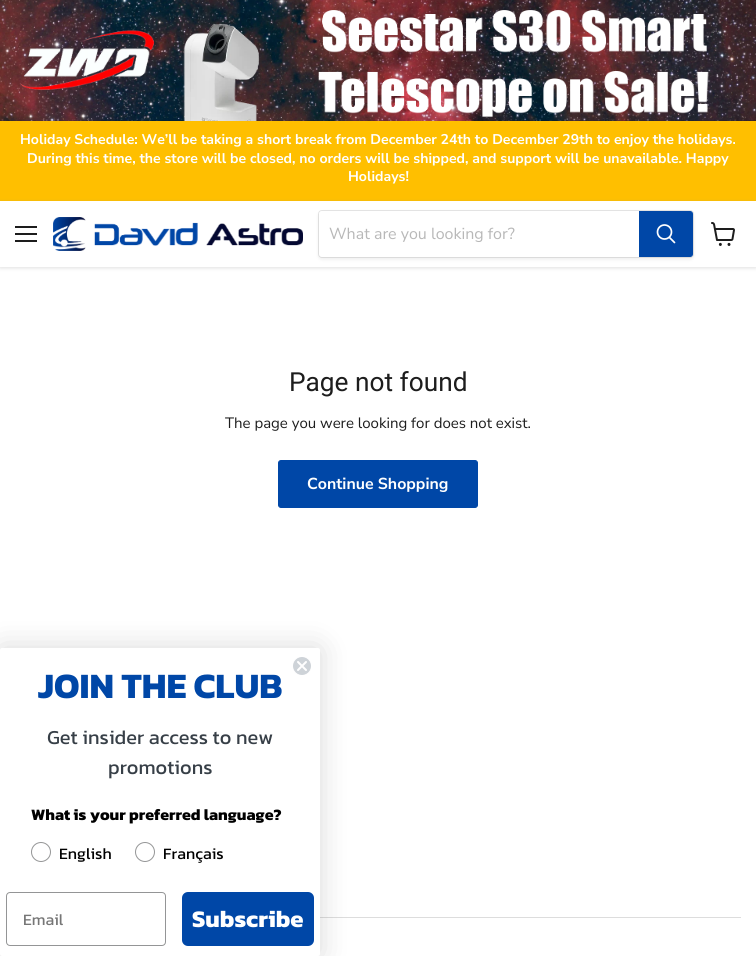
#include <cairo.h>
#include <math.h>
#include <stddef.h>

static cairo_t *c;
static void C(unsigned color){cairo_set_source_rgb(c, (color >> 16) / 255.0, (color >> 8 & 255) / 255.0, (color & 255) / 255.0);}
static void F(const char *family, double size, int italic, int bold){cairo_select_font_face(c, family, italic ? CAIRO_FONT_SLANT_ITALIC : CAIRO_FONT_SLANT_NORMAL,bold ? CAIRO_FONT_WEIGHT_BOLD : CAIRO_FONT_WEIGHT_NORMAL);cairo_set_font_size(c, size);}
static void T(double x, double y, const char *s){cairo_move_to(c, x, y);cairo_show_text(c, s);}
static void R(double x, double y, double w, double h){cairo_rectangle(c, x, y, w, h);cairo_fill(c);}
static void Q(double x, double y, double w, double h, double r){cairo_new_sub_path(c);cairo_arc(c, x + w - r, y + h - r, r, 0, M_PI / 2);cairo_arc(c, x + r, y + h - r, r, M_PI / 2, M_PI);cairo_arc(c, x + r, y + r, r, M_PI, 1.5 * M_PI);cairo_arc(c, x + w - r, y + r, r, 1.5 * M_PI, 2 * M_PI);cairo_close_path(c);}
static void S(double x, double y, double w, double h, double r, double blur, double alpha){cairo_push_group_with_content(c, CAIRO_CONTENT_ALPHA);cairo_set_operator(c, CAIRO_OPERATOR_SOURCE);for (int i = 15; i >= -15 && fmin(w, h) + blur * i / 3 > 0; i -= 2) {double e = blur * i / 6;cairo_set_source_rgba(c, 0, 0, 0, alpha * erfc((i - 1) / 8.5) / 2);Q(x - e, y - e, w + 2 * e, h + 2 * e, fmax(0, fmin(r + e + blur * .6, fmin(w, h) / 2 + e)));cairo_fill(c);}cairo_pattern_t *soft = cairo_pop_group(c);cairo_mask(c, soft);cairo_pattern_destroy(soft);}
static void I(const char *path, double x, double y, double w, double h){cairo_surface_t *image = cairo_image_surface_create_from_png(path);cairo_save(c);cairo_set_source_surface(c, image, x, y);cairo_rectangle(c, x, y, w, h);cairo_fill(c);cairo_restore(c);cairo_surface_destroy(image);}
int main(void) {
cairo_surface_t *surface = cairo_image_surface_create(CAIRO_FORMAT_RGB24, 756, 956);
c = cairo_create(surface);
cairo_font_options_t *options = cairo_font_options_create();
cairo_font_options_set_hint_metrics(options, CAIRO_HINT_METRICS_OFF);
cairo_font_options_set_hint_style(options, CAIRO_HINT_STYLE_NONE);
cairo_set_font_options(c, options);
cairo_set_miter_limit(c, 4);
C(0xffffff);
cairo_paint(c);
I("1.png",0,0,756,121);
I("2.png",19,10,690,111);
C(0xffbf00);
R(0,121,756,80);
F("Nunito Sans",14.05,0,1);
C(0xffffff);
T(20,144,"Holiday Schedule: We’ll be taking a short break from December 24th to December 29th to enjoy the holidays.");
T(27,163,"During this time, the store will be closed, no orders will be shipped, and support will be unavailable. Happy");
T(348,181,"Holidays!");
cairo_save(c);
cairo_set_fill_rule(c,CAIRO_FILL_RULE_EVEN_ODD);
cairo_new_path(c);
cairo_move_to(c,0,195);
cairo_line_to(c,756,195);
cairo_line_to(c,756,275);
cairo_line_to(c,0,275);
cairo_close_path(c);
cairo_move_to(c,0,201);
cairo_line_to(c,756,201);
cairo_line_to(c,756,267);
cairo_line_to(c,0,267);
cairo_close_path(c);
cairo_clip(c);
C(0x808080);
S(0,202,756,66,0,2,.25);
cairo_restore(c);
C(0x1d1d1d);
R(15,226,22,2);
R(15,233,22,2);
R(15,240,22,2);
I("3.png",53,217,250,34);
C(0x808080);
S(318,212,376,48,4,1.5,.11);
Q(318.5,210.5,375,47,3.5);
cairo_set_source_rgba(c,0.502,0.502,0.502,0.2);
cairo_set_line_width(c,1);
cairo_stroke(c);
C(0xffffff);
cairo_new_path(c);
cairo_move_to(c,322,211);
cairo_line_to(c,639,211);
cairo_line_to(c,639,257);
cairo_line_to(c,322,257);
cairo_curve_to(c,320.5,257,319,255.5,319,254);
cairo_line_to(c,319,214);
cairo_curve_to(c,319,212.5,320.5,211,322,211);
cairo_close_path(c);
cairo_fill(c);
F("Nunito Sans",16,0,0);
C(0xb8b8b8);
T(329,239,"What are you looking for?");
C(0x0047a7);
cairo_new_path(c);
cairo_move_to(c,639.5,211.5);
cairo_line_to(c,690,211.5);
cairo_curve_to(c,691.5,211.5,692.5,212.5,692.5,214);
cairo_line_to(c,692.5,254);
cairo_curve_to(c,692.5,255.5,691.5,256.5,690,256.5);
cairo_line_to(c,639.5,256.5);
cairo_close_path(c);
cairo_fill_preserve(c);
cairo_stroke(c);
cairo_new_path(c);
cairo_move_to(c,674.5,242.5);
cairo_line_to(c,669.5,237.5);
C(0xffffff);
cairo_set_line_width(c,1.7);
cairo_set_line_cap(c,CAIRO_LINE_CAP_ROUND);
cairo_stroke(c);
cairo_arc(c,664.5,232,7,0,2 * M_PI);
cairo_set_line_cap(c,CAIRO_LINE_CAP_BUTT);
cairo_stroke(c);
I("4.png",711,222,24,24);
F("Roboto",26.25,0,0);
C(0x1d1d1d);
T(289,391,"Page not found");
F("Nunito Sans",15,0,0);
T(225,428,"The page you were looking for does not exist.");
C(0x0047a7);
Q(278.5,460.5,199,47,2.5);
cairo_fill_preserve(c);
cairo_set_line_width(c,1);
cairo_stroke(c);
F("Nunito Sans",15.9,0,1);
C(0xffffff);
T(307,489,"Continue Shopping");
C(0xdddddd);
R(320,917,421,1);
C(0x000000);
S(0,648,320,308,2,15,.15);
C(0xffffff);
Q(0,648,320,308,2);
cairo_fill(c);
I("5.png",293,657,18,18);
F("Kanit",36,0,1);
C(0x0047a7);
T(38,698,"JOIN THE CLUB");
F("Kanit",20,0,0);
C(0x373f47);
T(47,744,"Get insider access to new");
T(108,774,"promotions");
F("Kanit",16,0,1);
C(0x000000);
T(31,820,"What is your preferred language?");
cairo_save(c);
Q(31,842,20,20,10);
cairo_clip(c);
cairo_arc(c,41,852,9.5,0,2 * M_PI);
C(0x949596);
cairo_stroke(c);
cairo_restore(c);
F("Kanit",16,0,0);
T(59,859,"English");
cairo_save(c);
Q(135,842,20,20,10);
cairo_clip(c);
cairo_arc(c,145,852,9.5,0,2 * M_PI);
C(0x949596);
cairo_stroke(c);
cairo_restore(c);
T(163,859,"Français");
Q(6.5,892.5,159,53,3.5);
C(0x949596);
cairo_stroke(c);
C(0x767676);
T(23,925,"Email");
C(0x0047a7);
Q(182,892,132,54,6);
cairo_fill(c);
F("Kanit",24,0,1);
C(0xffffff);
T(192,927,"Subscribe");
cairo_surface_write_to_png(surface, "o.png");
cairo_font_options_destroy(options);
cairo_destroy(c);
cairo_surface_destroy(surface);
return 0;
}
